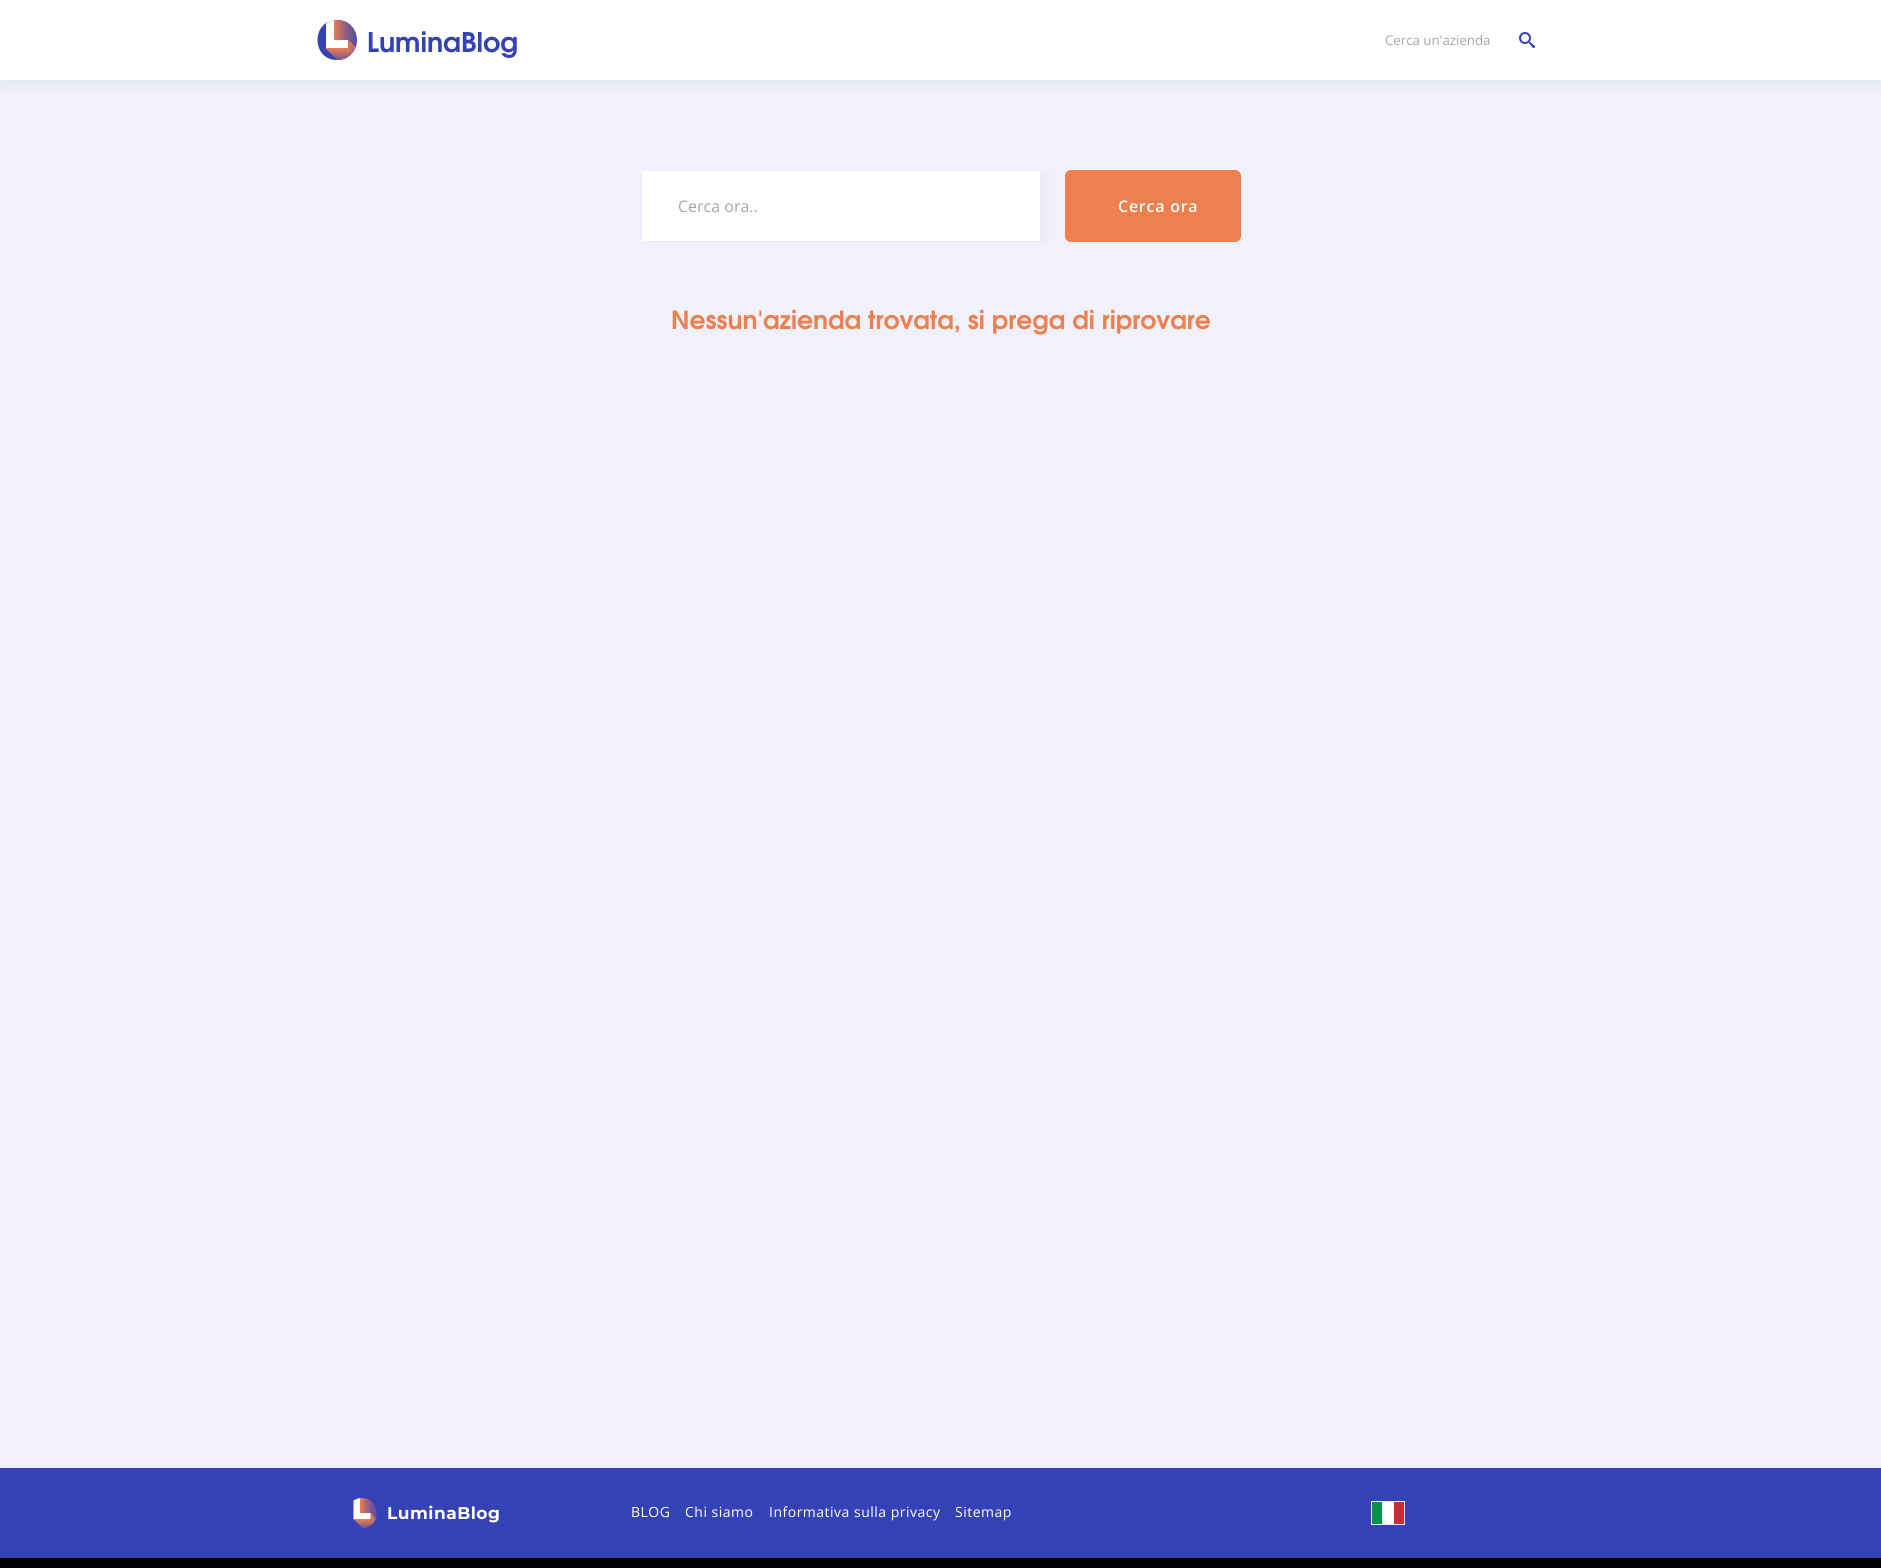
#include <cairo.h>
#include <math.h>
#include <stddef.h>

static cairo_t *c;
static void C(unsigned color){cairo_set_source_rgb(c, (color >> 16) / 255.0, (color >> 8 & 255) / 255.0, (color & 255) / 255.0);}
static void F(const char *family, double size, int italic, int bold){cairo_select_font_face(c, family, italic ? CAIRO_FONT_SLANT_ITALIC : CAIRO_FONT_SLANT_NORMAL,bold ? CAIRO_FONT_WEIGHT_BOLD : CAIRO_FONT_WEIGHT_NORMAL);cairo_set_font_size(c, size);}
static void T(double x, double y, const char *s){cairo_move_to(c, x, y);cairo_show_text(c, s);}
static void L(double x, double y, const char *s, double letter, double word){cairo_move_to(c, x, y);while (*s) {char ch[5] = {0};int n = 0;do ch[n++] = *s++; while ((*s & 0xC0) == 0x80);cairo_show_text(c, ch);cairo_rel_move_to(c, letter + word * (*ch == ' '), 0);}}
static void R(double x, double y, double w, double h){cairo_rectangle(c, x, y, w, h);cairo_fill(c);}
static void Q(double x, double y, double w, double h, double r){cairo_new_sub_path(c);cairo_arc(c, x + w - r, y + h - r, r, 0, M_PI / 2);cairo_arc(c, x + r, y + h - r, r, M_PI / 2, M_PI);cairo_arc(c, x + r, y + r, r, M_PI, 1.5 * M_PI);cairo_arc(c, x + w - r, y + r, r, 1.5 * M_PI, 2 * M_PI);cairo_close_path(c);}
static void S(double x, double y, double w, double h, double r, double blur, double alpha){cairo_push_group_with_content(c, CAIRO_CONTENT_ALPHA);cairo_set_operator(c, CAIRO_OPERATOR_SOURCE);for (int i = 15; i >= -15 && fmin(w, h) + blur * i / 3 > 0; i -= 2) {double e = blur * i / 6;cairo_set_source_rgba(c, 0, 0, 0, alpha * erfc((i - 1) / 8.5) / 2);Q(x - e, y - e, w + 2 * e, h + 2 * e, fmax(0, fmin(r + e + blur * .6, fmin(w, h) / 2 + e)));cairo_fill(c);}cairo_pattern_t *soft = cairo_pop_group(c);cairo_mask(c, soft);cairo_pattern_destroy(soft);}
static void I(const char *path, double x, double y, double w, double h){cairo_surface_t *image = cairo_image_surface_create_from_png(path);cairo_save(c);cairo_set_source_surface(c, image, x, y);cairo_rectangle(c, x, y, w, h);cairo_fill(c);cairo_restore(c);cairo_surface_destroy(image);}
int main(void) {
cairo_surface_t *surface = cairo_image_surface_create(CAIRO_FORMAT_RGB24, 1881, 1568);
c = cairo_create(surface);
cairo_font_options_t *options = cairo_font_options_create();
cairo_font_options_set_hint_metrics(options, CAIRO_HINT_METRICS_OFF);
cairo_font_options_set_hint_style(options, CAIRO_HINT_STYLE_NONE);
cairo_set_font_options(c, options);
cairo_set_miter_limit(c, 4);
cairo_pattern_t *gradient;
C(0xf0f1fa);
cairo_paint(c);
C(0x3542b7);
S(0,3,1881,80,0,9,.08);
C(0xffffff);
R(0,0,1881,80);
C(0x3542b7);
cairo_new_path(c);
cairo_move_to(c,337,20);
cairo_curve_to(c,311,20,311,60,337,60);
cairo_curve_to(c,363,60,363,20,337,20);
cairo_close_path(c);
cairo_fill(c);
gradient = cairo_pattern_create_linear(334,40,373,40);
cairo_pattern_add_color_stop_rgba(gradient,0,0.933,0.498,0.306,1);
cairo_pattern_add_color_stop_rgba(gradient,.1,0.8,0.451,0.38,1);
cairo_pattern_add_color_stop_rgba(gradient,.25,0.62,0.392,0.482,1);
cairo_pattern_add_color_stop_rgba(gradient,.4,0.471,0.345,0.565,1);
cairo_pattern_add_color_stop_rgba(gradient,.55,0.353,0.306,0.631,1);
cairo_pattern_add_color_stop_rgba(gradient,.7,0.271,0.278,0.678,1);
cairo_pattern_add_color_stop_rgba(gradient,.85,0.224,0.263,0.706,1);
cairo_pattern_add_color_stop_rgba(gradient,.99,0.208,0.259,0.718,1);
cairo_set_source(c,gradient);
cairo_pattern_destroy(gradient);
cairo_new_path(c);
cairo_move_to(c,337,20);
cairo_curve_to(c,356,20,364,44,349.5,55.5);
cairo_line_to(c,334,40);
cairo_line_to(c,334,20);
cairo_close_path(c);
cairo_fill(c);
gradient = cairo_pattern_create_linear(347,48,347,91);
cairo_pattern_add_color_stop_rgba(gradient,0,0.933,0.498,0.306,1);
cairo_pattern_add_color_stop_rgba(gradient,.22,0.565,0.376,0.51,1);
cairo_pattern_add_color_stop_rgba(gradient,.39,0.306,0.29,0.659,1);
cairo_pattern_add_color_stop_rgba(gradient,.47,0.208,0.259,0.718,1);
cairo_set_source(c,gradient);
cairo_pattern_destroy(gradient);
cairo_new_path(c);
cairo_move_to(c,348,48);
cairo_line_to(c,352.5,52.5);
cairo_curve_to(c,349,57,343.5,60,337.5,60);
cairo_line_to(c,325,48);
cairo_close_path(c);
cairo_fill(c);
gradient = cairo_pattern_create_linear(347,40,370,57);
cairo_pattern_add_color_stop_rgba(gradient,0,0.933,0.498,0.306,1);
cairo_pattern_add_color_stop_rgba(gradient,.11,0.933,0.498,0.306,1);
cairo_pattern_add_color_stop_rgba(gradient,1,0.208,0.259,0.718,1);
cairo_set_source(c,gradient);
cairo_pattern_destroy(gradient);
cairo_new_path(c);
cairo_move_to(c,348.5,48);
cairo_line_to(c,348.5,40);
cairo_line_to(c,355.5,47);
cairo_curve_to(c,355,49,354,51,352.5,52.5);
cairo_close_path(c);
cairo_fill(c);
C(0xffffff);
cairo_new_path(c);
cairo_move_to(c,348,48);
cairo_line_to(c,326,48);
cairo_line_to(c,326,23.5);
cairo_curve_to(c,328.5,21.5,331,20.5,334,20);
cairo_line_to(c,334,40);
cairo_line_to(c,348,40);
cairo_close_path(c);
cairo_fill(c);
F("TeX Gyre Adventor",27,0,1);
C(0x3542b7);
T(367,52,"LuminaBlog");
F("Open Sans",13.25,0,0);
C(0xa6a6a6);
T(1385,45,"Cerca un'azienda");
I("1.png",1519,32,16,16);
cairo_save(c);
Q(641,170,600,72,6);
cairo_clip(c);
C(0x000000);
S(641,173,400,72,0,8,.06);
cairo_restore(c);
C(0xffffff);
cairo_new_path(c);
cairo_move_to(c,647,170);
cairo_line_to(c,1041,170);
cairo_line_to(c,1041,242);
cairo_line_to(c,647,242);
cairo_curve_to(c,643.5,242,641,239.5,641,236);
cairo_line_to(c,641,176);
cairo_curve_to(c,641,172.5,643.5,170,647,170);
cairo_close_path(c);
cairo_fill(c);
cairo_set_source_rgba(c,0.208,0.259,0.718,0.1);
cairo_set_fill_rule(c,CAIRO_FILL_RULE_EVEN_ODD);
cairo_new_path(c);
cairo_move_to(c,641,176);
cairo_line_to(c,641,236);
cairo_curve_to(c,641,237,641,238,642,239);
cairo_line_to(c,642,173);
cairo_close_path(c);
cairo_move_to(c,647,170);
cairo_line_to(c,644,171);
cairo_line_to(c,1040,171);
cairo_line_to(c,1040,241);
cairo_line_to(c,644,241);
cairo_line_to(c,647,242);
cairo_line_to(c,1041,242);
cairo_line_to(c,1041,170);
cairo_close_path(c);
cairo_fill(c);
F("Open Sans",16,0,0);
C(0xa6a6a6);
T(678,212,"Cerca ora..");
C(0xee7f4e);
Q(1065,170,176,72,6);
cairo_fill(c);
F("Open Sans SemiBold",16,0,0);
C(0xffffff);
L(1118,212,"Cerca ora",.75,0);
F("TeX Gyre Adventor",25,0,1);
C(0xee7f4e);
T(671,329,"Nessun'azienda trovata, si prega di riprovare");
C(0x3542b7);
R(0,1468,1881,90);
C(0x000000);
R(0,1558,1881,10);
gradient = cairo_pattern_create_linear(360,1513,389,1513);
cairo_pattern_add_color_stop_rgba(gradient,0,0.933,0.498,0.306,1);
cairo_pattern_add_color_stop_rgba(gradient,.1,0.8,0.451,0.38,1);
cairo_pattern_add_color_stop_rgba(gradient,.25,0.62,0.392,0.482,1);
cairo_pattern_add_color_stop_rgba(gradient,.4,0.471,0.345,0.565,1);
cairo_pattern_add_color_stop_rgba(gradient,.55,0.353,0.306,0.631,1);
cairo_pattern_add_color_stop_rgba(gradient,.7,0.271,0.278,0.678,1);
cairo_pattern_add_color_stop_rgba(gradient,.85,0.224,0.263,0.706,1);
cairo_pattern_add_color_stop_rgba(gradient,.99,0.208,0.259,0.718,1);
cairo_set_source(c,gradient);
cairo_pattern_destroy(gradient);
cairo_set_fill_rule(c,CAIRO_FILL_RULE_WINDING);
cairo_new_path(c);
cairo_move_to(c,362,1498);
cairo_curve_to(c,376,1498,382,1516,371.5,1524.5);
cairo_line_to(c,360,1513);
cairo_line_to(c,360,1498);
cairo_close_path(c);
cairo_fill(c);
gradient = cairo_pattern_create_linear(370,1519,370,1551);
cairo_pattern_add_color_stop_rgba(gradient,0,0.933,0.498,0.306,1);
cairo_pattern_add_color_stop_rgba(gradient,.22,0.565,0.376,0.51,1);
cairo_pattern_add_color_stop_rgba(gradient,.39,0.306,0.29,0.659,1);
cairo_pattern_add_color_stop_rgba(gradient,.47,0.208,0.259,0.718,1);
cairo_set_source(c,gradient);
cairo_pattern_destroy(gradient);
cairo_new_path(c);
cairo_move_to(c,370.5,1519);
cairo_line_to(c,374,1522.5);
cairo_curve_to(c,371,1525.5,367,1528,362.5,1528);
cairo_line_to(c,353.5,1519);
cairo_close_path(c);
cairo_fill(c);
gradient = cairo_pattern_create_linear(369,1513,387,1526);
cairo_pattern_add_color_stop_rgba(gradient,0,0.933,0.498,0.306,1);
cairo_pattern_add_color_stop_rgba(gradient,.11,0.933,0.498,0.306,1);
cairo_pattern_add_color_stop_rgba(gradient,1,0.208,0.259,0.718,1);
cairo_set_source(c,gradient);
cairo_pattern_destroy(gradient);
cairo_new_path(c);
cairo_move_to(c,370.5,1519);
cairo_line_to(c,370.5,1513);
cairo_line_to(c,376,1518.5);
cairo_line_to(c,374,1522.5);
cairo_close_path(c);
cairo_fill(c);
C(0xffffff);
cairo_new_path(c);
cairo_move_to(c,370.5,1519);
cairo_line_to(c,353.5,1519);
cairo_line_to(c,353.5,1500.5);
cairo_curve_to(c,355.5,1499.5,357.5,1498.5,360,1498);
cairo_line_to(c,360,1513);
cairo_line_to(c,370.5,1513);
cairo_close_path(c);
cairo_fill(c);
F("Montserrat",17,0,1);
L(387,1519,"LuminaBlog",.5,0);
F("Open Sans",14,0,0);
L(631,1517,"BLOG",.5,0);
L(685,1517,"Chi siamo",.5,0);
L(769,1517,"Informativa sulla privacy",.5,0);
L(955,1517,"Sitemap",.5,0);
cairo_rectangle(c,1371.45,1501.45,33.1,23.1);
cairo_set_line_width(c,.9);
cairo_stroke(c);
R(1382,1502,12,22);
C(0x009246);
R(1372,1502,10,22);
C(0xce2b37);
R(1394,1502,10,22);
cairo_surface_write_to_png(surface, "o.png");
cairo_font_options_destroy(options);
cairo_destroy(c);
cairo_surface_destroy(surface);
return 0;
}
